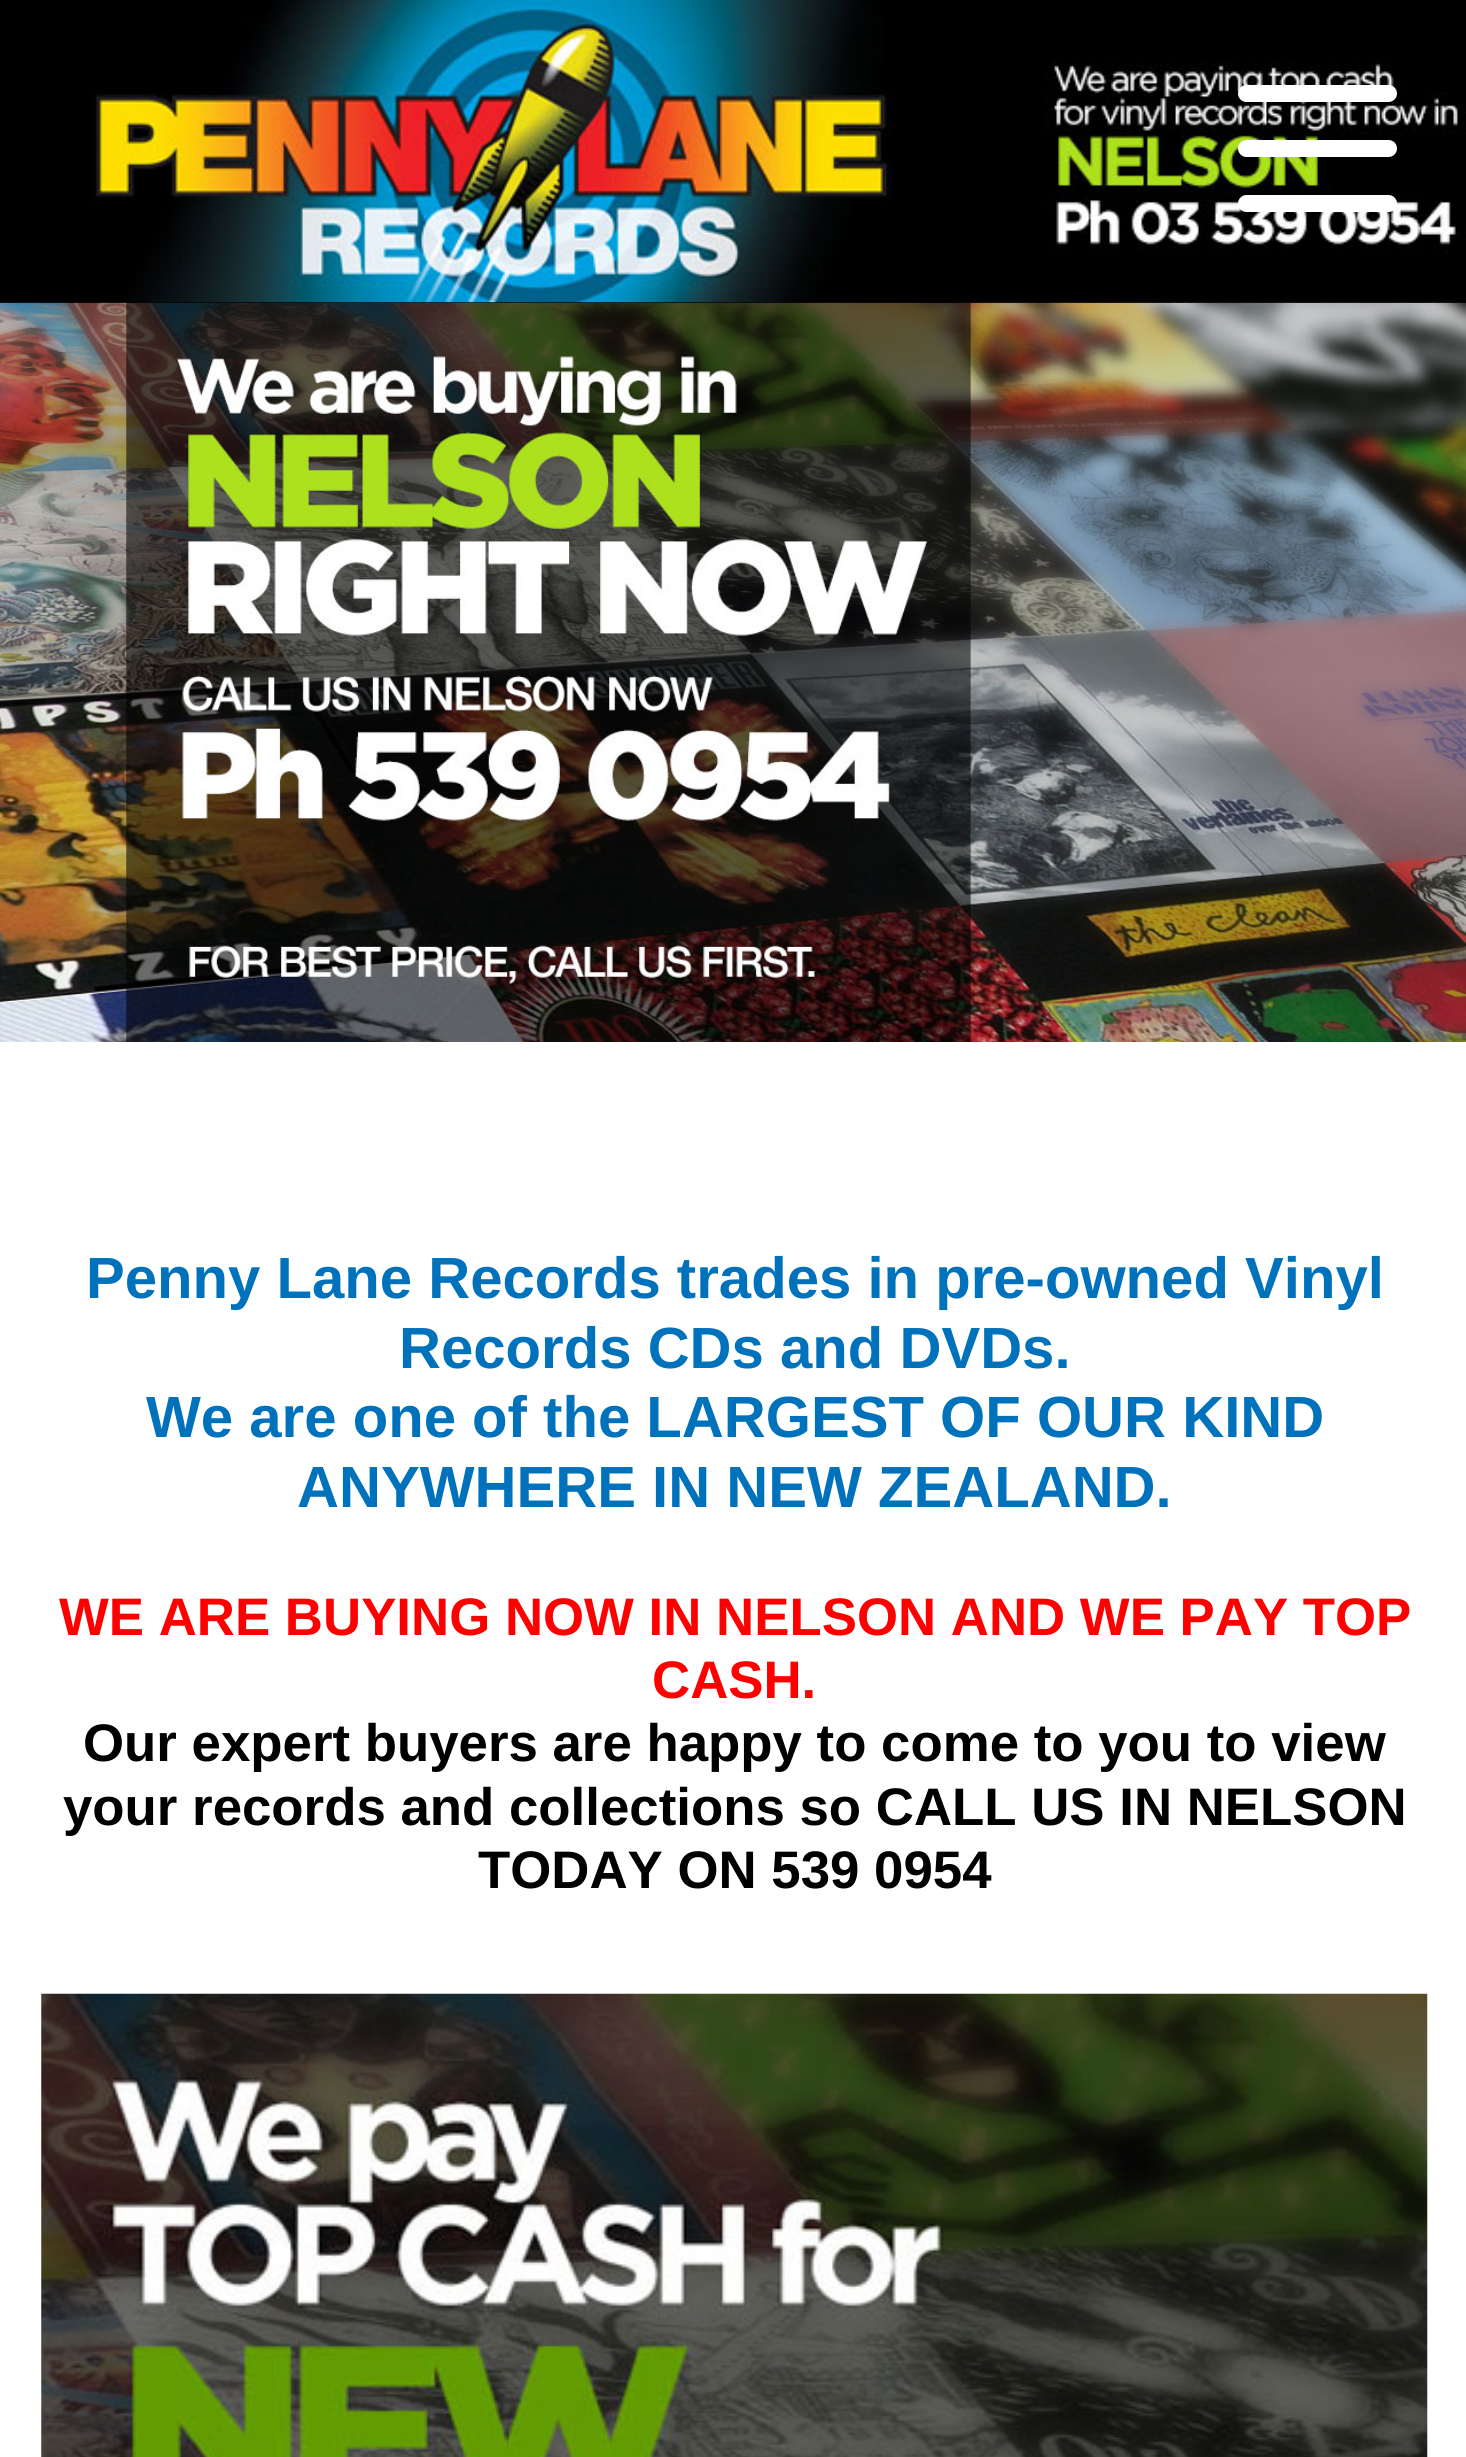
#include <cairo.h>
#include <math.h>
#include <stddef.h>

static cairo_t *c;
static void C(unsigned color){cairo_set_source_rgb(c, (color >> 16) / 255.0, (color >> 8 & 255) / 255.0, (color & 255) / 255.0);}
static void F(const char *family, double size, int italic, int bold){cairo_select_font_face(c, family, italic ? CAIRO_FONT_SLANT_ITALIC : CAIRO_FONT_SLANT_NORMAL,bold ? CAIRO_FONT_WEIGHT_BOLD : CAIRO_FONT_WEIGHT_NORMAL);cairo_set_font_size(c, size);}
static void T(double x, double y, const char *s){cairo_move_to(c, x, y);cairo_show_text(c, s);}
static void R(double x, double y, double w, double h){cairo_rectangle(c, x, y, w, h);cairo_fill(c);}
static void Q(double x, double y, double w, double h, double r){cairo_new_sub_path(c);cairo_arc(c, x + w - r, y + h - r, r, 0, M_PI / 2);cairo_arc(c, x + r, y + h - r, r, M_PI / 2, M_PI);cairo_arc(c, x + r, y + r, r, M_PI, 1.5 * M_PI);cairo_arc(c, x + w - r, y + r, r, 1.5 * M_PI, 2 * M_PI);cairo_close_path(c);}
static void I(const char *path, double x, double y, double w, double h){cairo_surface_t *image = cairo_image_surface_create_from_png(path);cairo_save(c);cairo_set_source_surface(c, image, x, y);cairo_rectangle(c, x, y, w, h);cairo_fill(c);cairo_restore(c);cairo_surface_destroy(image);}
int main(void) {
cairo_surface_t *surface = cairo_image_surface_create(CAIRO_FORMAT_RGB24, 1466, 2457);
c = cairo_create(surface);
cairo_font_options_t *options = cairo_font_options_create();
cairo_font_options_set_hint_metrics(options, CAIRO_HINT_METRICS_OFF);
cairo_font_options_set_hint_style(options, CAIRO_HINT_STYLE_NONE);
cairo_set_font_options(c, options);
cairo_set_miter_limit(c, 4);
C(0xffffff);
cairo_paint(c);
C(0x000000);
R(0,0,1466,303);
I("1.png",90,0,1376,303);
C(0xffffff);
Q(1238,85,159,17,8.5);
cairo_fill(c);
Q(1238,140,159,17,8.5);
cairo_fill(c);
Q(1238,195,159,17,8.5);
cairo_fill(c);
I("2.png",0,302,1466,740);
F("Liberation Sans",58.1,0,1);
C(0x0072bc);
T(86,1298,"Penny Lane Records trades in pre-owned Vinyl");
T(399,1368,"Records CDs and DVDs.");
T(146,1437,"We are one of the LARGEST OF OUR KIND");
T(297,1507,"ANYWHERE IN NEW ZEALAND.");
F("Liberation Sans",52.8,0,1);
C(0xff0000);
T(59,1635,"WE ARE BUYING NOW IN NELSON AND WE PAY TOP");
T(652,1698,"CASH.");
C(0x000000);
T(83,1761,"Our expert buyers are happy to come to you to view");
T(63,1825,"your records and collections so CALL US IN NELSON");
T(478,1888,"TODAY ON 539 0954");
I("3.png",41,1993,1387,464);
cairo_surface_write_to_png(surface, "o.png");
cairo_font_options_destroy(options);
cairo_destroy(c);
cairo_surface_destroy(surface);
return 0;
}
